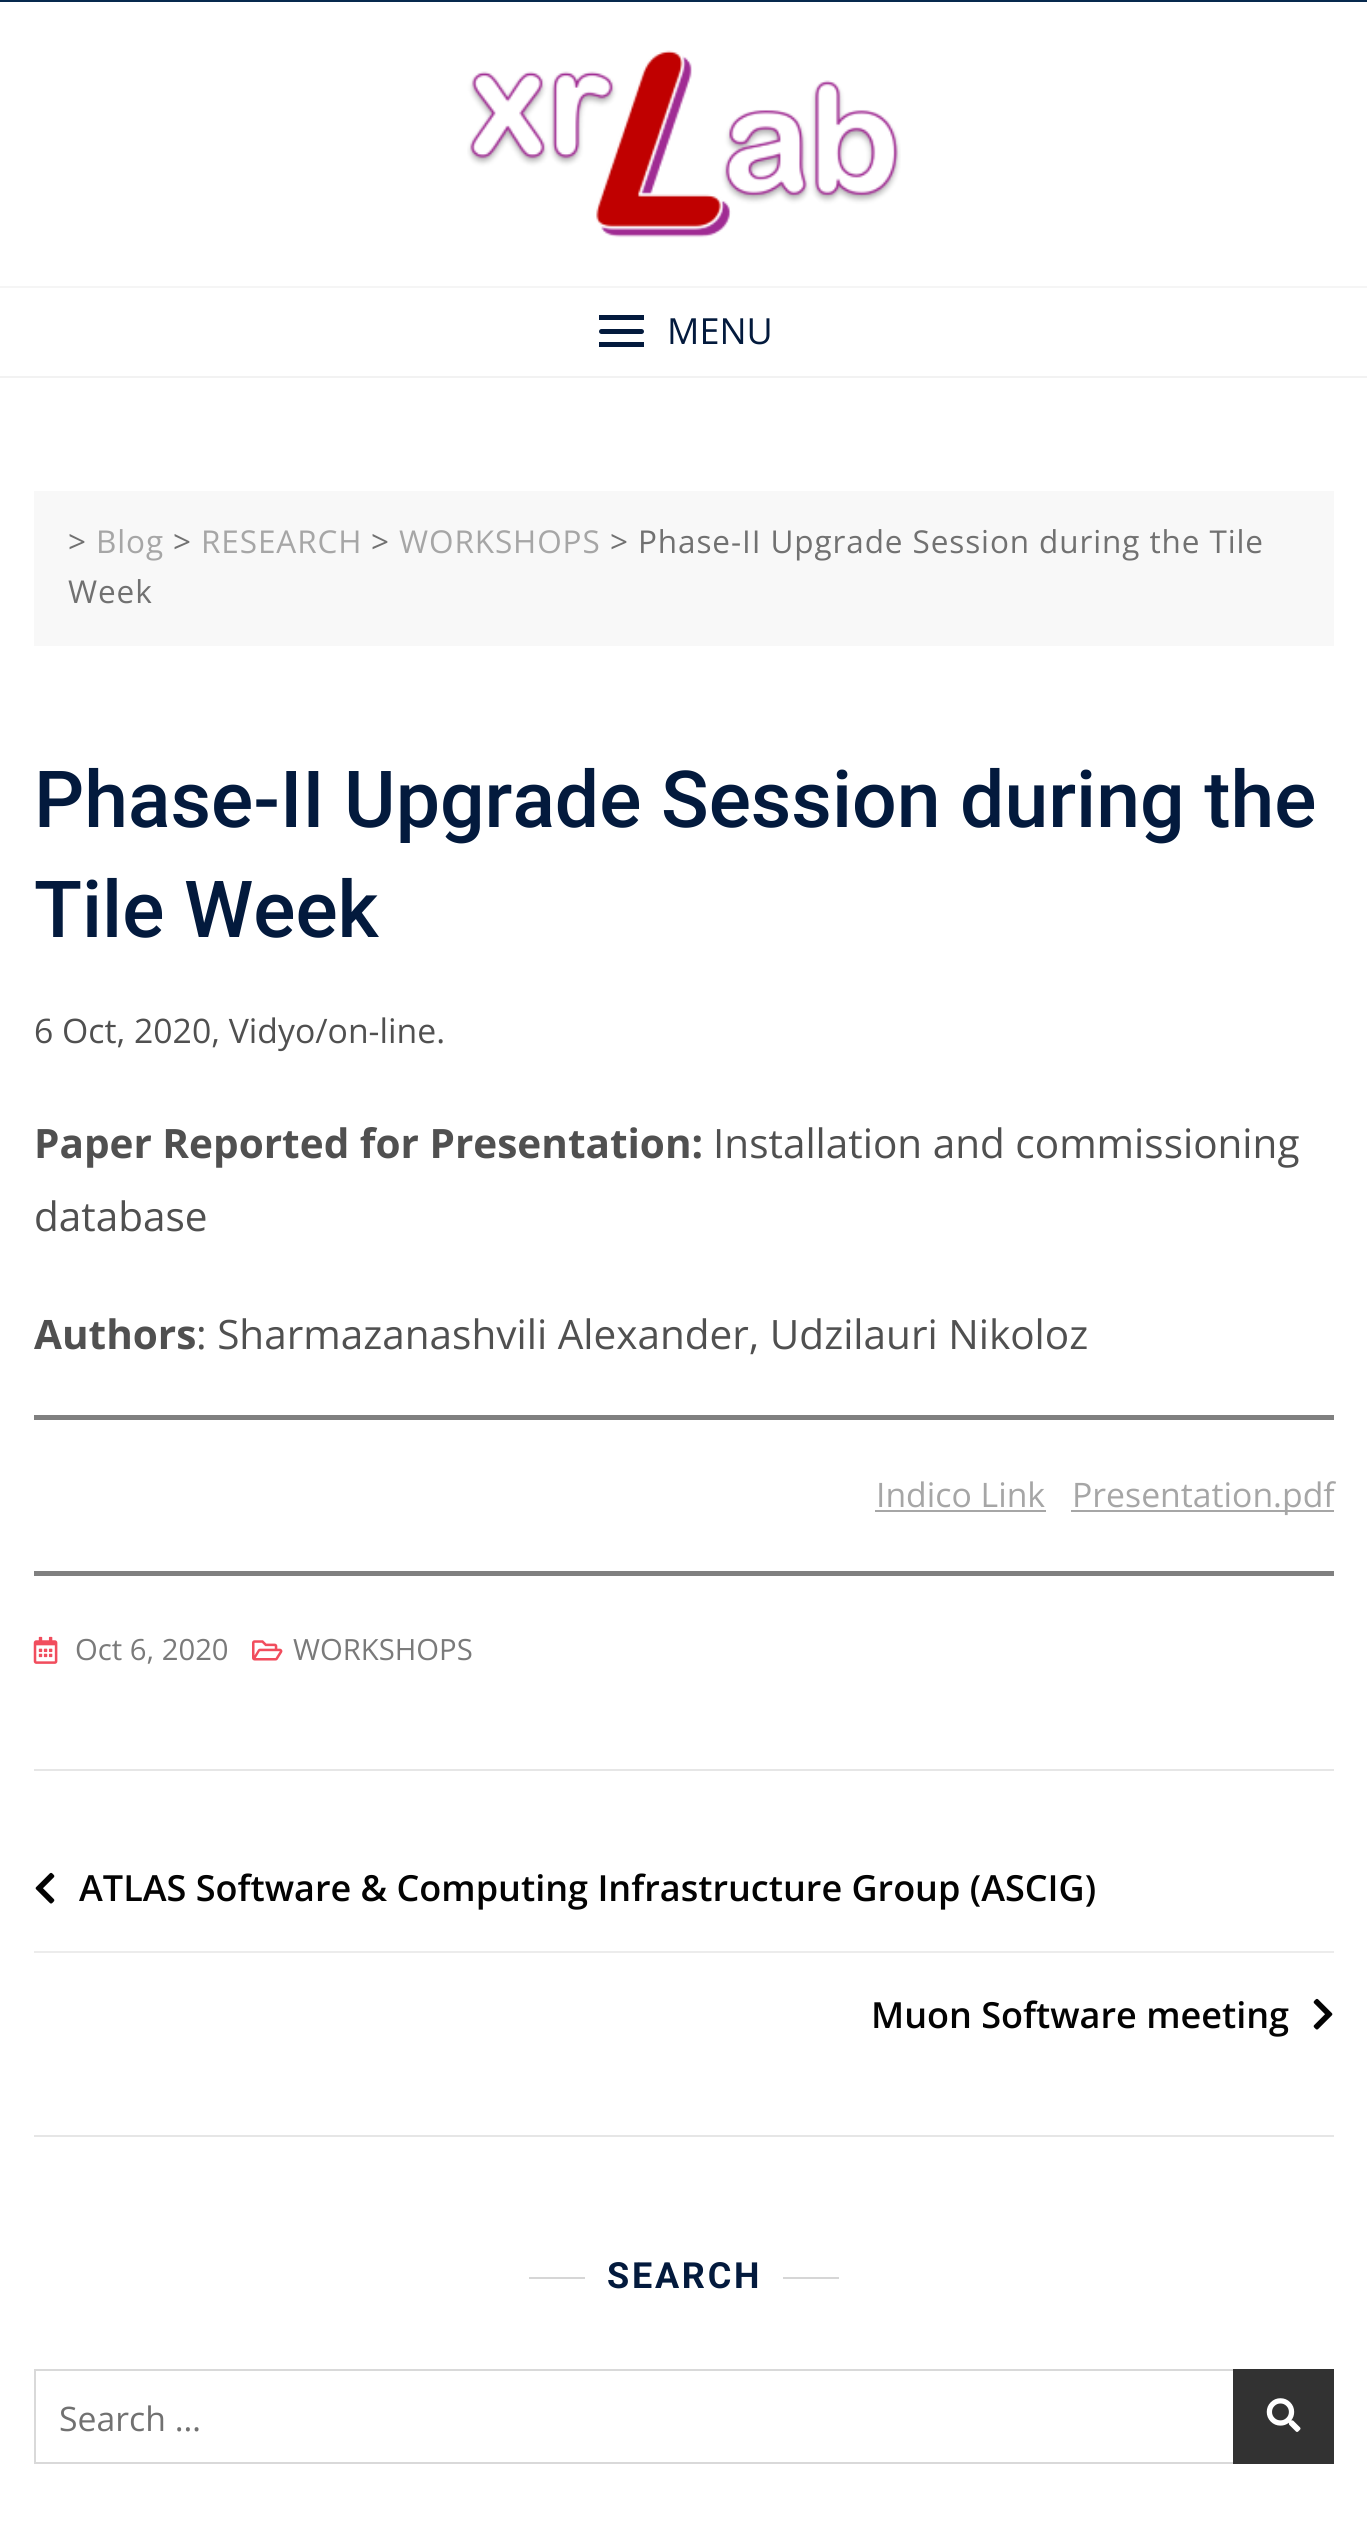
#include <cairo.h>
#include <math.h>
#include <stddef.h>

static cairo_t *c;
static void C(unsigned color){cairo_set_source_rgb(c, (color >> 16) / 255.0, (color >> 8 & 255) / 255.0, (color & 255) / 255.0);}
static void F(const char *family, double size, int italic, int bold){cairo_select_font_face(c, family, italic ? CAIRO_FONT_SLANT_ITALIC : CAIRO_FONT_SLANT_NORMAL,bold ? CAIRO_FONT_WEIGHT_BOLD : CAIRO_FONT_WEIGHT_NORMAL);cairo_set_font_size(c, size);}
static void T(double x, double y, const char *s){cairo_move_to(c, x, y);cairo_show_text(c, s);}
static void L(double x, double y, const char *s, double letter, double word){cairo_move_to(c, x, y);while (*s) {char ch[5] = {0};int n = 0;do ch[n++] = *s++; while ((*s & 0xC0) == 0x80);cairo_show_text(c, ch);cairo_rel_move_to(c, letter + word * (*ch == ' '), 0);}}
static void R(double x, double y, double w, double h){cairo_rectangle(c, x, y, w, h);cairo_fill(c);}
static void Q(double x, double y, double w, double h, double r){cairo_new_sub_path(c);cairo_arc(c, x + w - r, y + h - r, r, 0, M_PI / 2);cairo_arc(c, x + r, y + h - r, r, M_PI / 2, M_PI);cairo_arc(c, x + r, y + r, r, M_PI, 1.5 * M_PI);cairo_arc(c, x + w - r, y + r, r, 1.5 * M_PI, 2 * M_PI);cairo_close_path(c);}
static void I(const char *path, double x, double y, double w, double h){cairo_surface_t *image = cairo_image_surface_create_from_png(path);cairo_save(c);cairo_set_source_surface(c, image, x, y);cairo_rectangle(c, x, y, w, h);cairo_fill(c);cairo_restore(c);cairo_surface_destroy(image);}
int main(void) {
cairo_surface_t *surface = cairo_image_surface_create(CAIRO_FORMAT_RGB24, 1367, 2527);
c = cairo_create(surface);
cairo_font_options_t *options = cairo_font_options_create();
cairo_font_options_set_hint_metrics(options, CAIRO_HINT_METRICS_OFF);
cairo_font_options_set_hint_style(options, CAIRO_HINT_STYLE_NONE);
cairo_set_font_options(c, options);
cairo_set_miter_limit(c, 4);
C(0xffffff);
cairo_paint(c);
C(0x07294d);
R(0,0,1367,2);
C(0xf5f5f5);
R(0,286,1367,2);
I("1.png",467,50,434,188);
C(0x031a3d);
Q(599,329,45,5,2.5);
cairo_fill(c);
R(599,315,45,5);
R(599,342,45,5);
F("Open Sans",36,0,0);
T(667,344,"MENU");
C(0xf2f2f2);
R(0,376,1367,2);
C(0xf8f8f8);
R(34,491,1300,155);
F("Open Sans",31.5,0,0);
C(0x717171);
L(68,553,">",.9,0);
C(0xa6a6a6);
L(96,553,"Blog",.9,0);
C(0x717171);
L(173,553,">",.9,0);
C(0xa6a6a6);
L(201,553,"RESEARCH",.9,0);
C(0x717171);
L(371,553,">",.9,0);
C(0xa6a6a6);
L(399,553,"WORKSHOPS",.9,0);
C(0x717171);
L(610,553,"> Phase-II Upgrade Session during the Tile",.9,0);
L(68,603,"Week",.9,0);
F("Roboto Medium",78.75,0,0);
C(0x031a3d);
T(34,827,"Phase-II Upgrade Session during the");
T(34,937,"Tile Week");
F("Open Sans",33.75,0,0);
C(0x505050);
T(34,1043,"6 Oct, 2020, Vidyo/on-line.");
F("Open Sans",40.5,0,1);
T(34,1158,"Paper Reported for Presentation:");
F("Open Sans",40.5,0,0);
T(713,1158,"Installation and commissioning");
T(34,1231,"database");
F("Open Sans",40.5,0,1);
T(34,1349,"Authors");
F("Open Sans",40.5,0,0);
T(196,1349,": Sharmazanashvili Alexander, Udzilauri Nikoloz");
C(0x808080);
R(34,1415,1300,5);
F("Open Sans",33.75,0,0);
C(0xa6a6a6);
T(876,1507,"Indico Link");
R(875,1510,171,2);
R(1071,1510,263,2);
T(1072,1507,"Presentation.pdf");
C(0x808080);
R(34,1571,1300,5);
I("2.png",33,1636,25,28);
F("Open Sans",29.25,0,0);
C(0x7a7a7a);
T(75,1660,"Oct 6, 2020");
I("3.png",252,1640,31,21);
T(293,1660,"WORKSHOPS");
C(0xe6e6e6);
R(34,1769,1300,2);
R(34,2135,1300,2);
I("4.png",35,1872,20,32);
F("Open Sans SemiBold",36,0,0);
C(0x030303);
T(79,1901,"ATLAS Software & Computing Infrastructure Group (ASCIG)");
C(0xececec);
R(34,1951,1300,2);
C(0x030303);
T(871,2028,"Muon Software meeting");
I("5.png",1313,1998,20,32);
C(0xd6d6d6);
R(529,2277,56,2);
F("Roboto",36,0,1);
C(0x031a3d);
L(607,2288,"SEARCH",2.75,0);
C(0xd6d6d6);
R(783,2277,56,2);
cairo_rectangle(c,35,2370,1298,93);
C(0xd9d9d9);
cairo_stroke(c);
F("Open Sans",33.75,0,0);
C(0x717171);
T(59,2431,"Search …");
C(0x323232);
R(1233,2369,101,95);
I("6.png",1266,2398,35,34);
cairo_surface_write_to_png(surface, "o.png");
cairo_font_options_destroy(options);
cairo_destroy(c);
cairo_surface_destroy(surface);
return 0;
}
